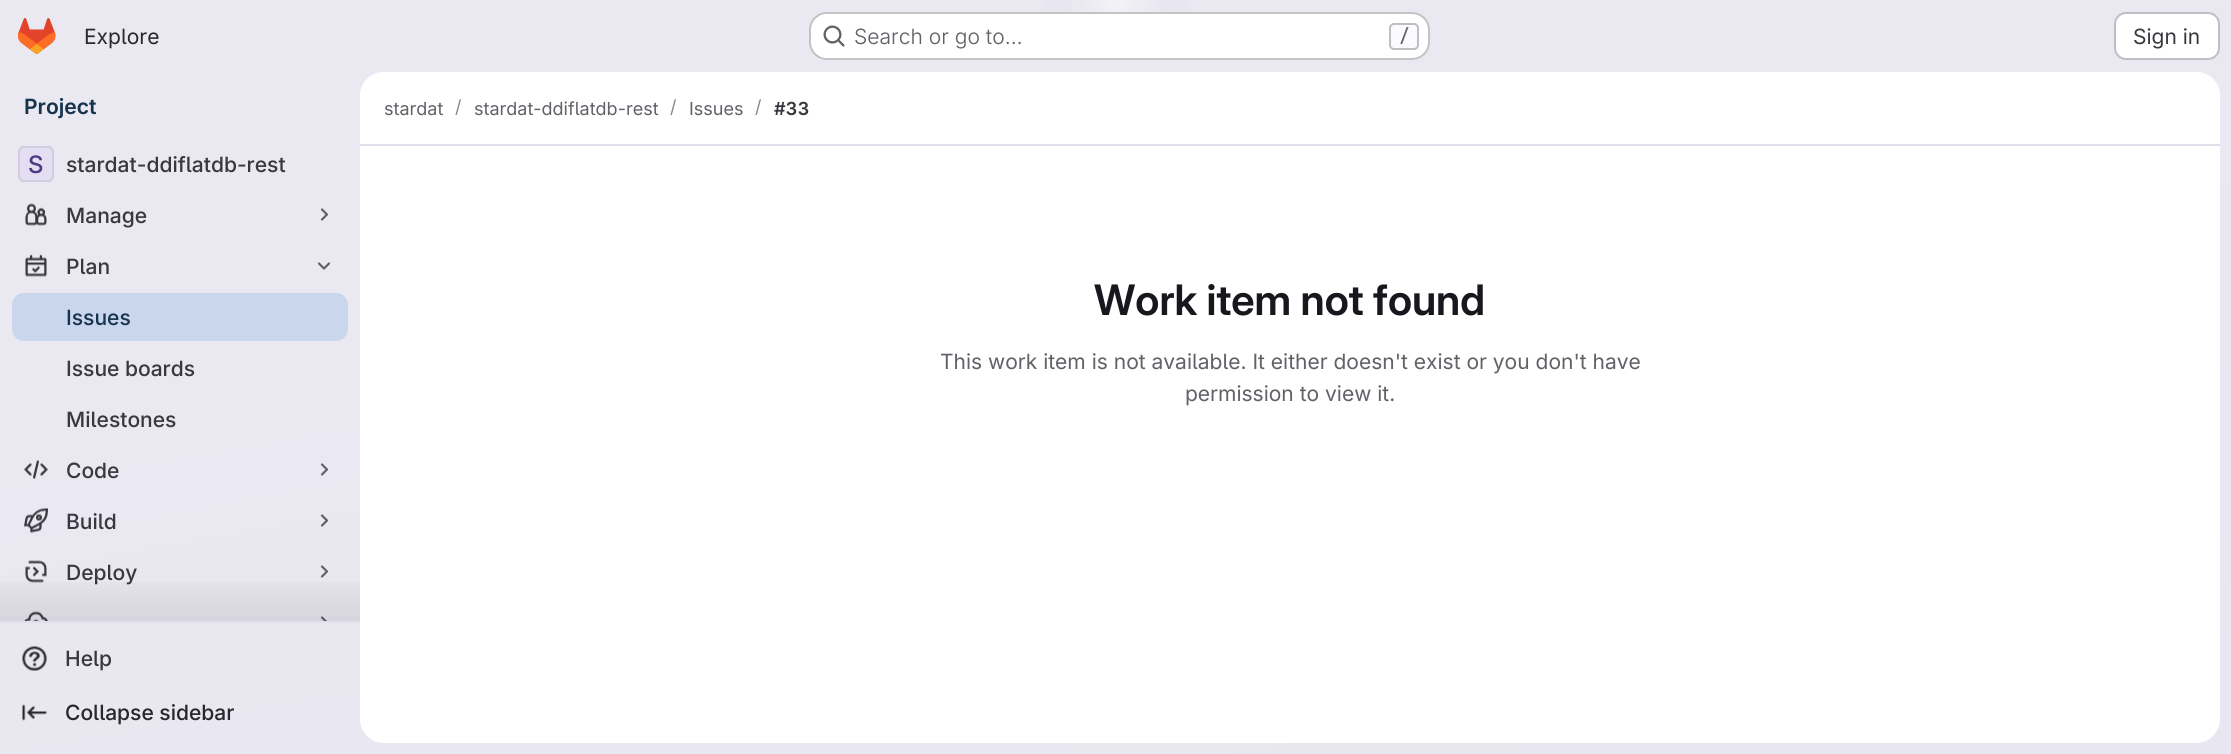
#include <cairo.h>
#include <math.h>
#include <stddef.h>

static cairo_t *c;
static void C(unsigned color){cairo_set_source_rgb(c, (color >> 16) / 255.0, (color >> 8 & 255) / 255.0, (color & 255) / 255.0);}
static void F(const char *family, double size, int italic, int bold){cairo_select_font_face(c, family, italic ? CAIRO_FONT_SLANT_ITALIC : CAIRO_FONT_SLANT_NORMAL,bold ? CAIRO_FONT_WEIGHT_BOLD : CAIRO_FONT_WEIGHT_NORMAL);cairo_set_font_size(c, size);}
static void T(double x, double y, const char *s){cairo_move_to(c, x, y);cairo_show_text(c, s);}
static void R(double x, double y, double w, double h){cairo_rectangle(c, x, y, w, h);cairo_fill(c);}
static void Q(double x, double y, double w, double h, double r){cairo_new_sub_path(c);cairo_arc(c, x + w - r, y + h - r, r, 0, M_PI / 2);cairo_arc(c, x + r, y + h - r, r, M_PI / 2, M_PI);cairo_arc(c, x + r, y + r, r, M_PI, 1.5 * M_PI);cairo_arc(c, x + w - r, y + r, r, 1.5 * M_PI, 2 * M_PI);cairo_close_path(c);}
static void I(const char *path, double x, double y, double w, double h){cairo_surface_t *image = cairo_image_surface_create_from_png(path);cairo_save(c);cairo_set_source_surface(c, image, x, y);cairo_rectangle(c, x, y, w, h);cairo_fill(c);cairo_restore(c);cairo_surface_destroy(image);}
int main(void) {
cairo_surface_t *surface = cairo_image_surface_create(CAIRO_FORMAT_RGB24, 2231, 754);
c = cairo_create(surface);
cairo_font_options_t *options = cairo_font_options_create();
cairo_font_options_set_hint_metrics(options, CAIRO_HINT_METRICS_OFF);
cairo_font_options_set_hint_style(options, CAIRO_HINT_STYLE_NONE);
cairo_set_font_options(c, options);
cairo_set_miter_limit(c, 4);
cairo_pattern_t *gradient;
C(0xffffff);
cairo_paint(c);
gradient = cairo_pattern_create_linear(1214,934,1018,-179);
cairo_pattern_add_color_stop_rgba(gradient,0,0.91,0.902,0.941,1);
cairo_pattern_add_color_stop_rgba(gradient,.7,0.918,0.914,0.949,1);
cairo_set_source(c,gradient);
cairo_pattern_destroy(gradient);
R(0,0,2231,754);
gradient = cairo_pattern_create_radial(0,0,0,0,0,1);
cairo_pattern_set_matrix(gradient, &(cairo_matrix_t){1.0 / 1116, 0, 0, 1.0 / 755, -1.0 * 1116 / 1116, -1.0 * 0 / 755});
cairo_pattern_add_color_stop_rgba(gradient,0,0.894,0.886,0.929,1);
cairo_pattern_add_color_stop_rgba(gradient,.09,0.894,0.886,0.929,0);
cairo_set_source(c,gradient);
cairo_pattern_destroy(gradient);
R(1044,0,144,49);
gradient = cairo_pattern_create_radial(0,0,0,0,0,1);
cairo_pattern_set_matrix(gradient, &(cairo_matrix_t){1.0 / 1116, 0, 0, 1.0 / 755, -1.0 * 1116 / 1116, -1.0 * 0 / 755});
cairo_pattern_add_color_stop_rgba(gradient,0,0.894,0.886,0.925,1);
cairo_pattern_add_color_stop_rgba(gradient,.07,0.894,0.886,0.925,0);
cairo_set_source(c,gradient);
cairo_pattern_destroy(gradient);
R(1080,1,56,10);
gradient = cairo_pattern_create_radial(1116,0,0,1116,0,1347);
cairo_pattern_add_color_stop_rgba(gradient,0,1,1,1,.6);
cairo_pattern_add_color_stop_rgba(gradient,.04,1,1,1,0);
cairo_set_source(c,gradient);
cairo_pattern_destroy(gradient);
R(1071,0,90,12);
I("1.png",18,18,38,36);
F("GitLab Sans",21,0,0);
C(0x28272d);
T(84,44,"Explore");
C(0xffffff);
Q(809,12,621,48,18);
cairo_fill(c);
Q(810,13,619,46,17);
cairo_set_source_rgba(c,0.02,0.02,0.024,0.24);
cairo_stroke(c);
I("2.png",823,25,22,22);
F("GitLab Sans Light",21,0,0);
C(0x626168);
T(854,44,"Search or go to…");
C(0xfbfafd);
Q(1390,24,28,25,4);
cairo_fill_preserve(c);
C(0xbfbfc3);
cairo_stroke(c);
F("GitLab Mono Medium",18,0,0);
C(0x626168);
T(1399,42,"/");
C(0xffffff);
Q(2115,13,104,46,11);
cairo_fill_preserve(c);
C(0xbfbfc3);
cairo_stroke(c);
F("GitLab Sans",21,0,0);
C(0x3a383f);
T(2133,44,"Sign in");
F("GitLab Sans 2 SemiBold",21,0,0);
C(0x18334e);
T(24,114,"Project");
C(0xe1dfec);
R(0,621,360,2);
C(0xe3def2);
Q(18,146,36,36,6);
cairo_fill(c);
Q(19,147,34,34,5);
C(0xd1cddf);
cairo_stroke(c);
F("GitLab Sans 2 Medium",24,0,0);
C(0x493c83);
T(28,173,"S");
F("GitLab Sans Medium",21,0,0);
C(0x3a383f);
T(66,172,"stardat-ddiflatdb-rest");
I("3.png",25,203,22,23);
T(66,223,"Manage");
cairo_new_path(c);
cairo_move_to(c,322,209.5);
cairo_line_to(c,327,214.5);
cairo_line_to(c,322,219.5);
C(0x626168);
cairo_set_line_width(c,2.2);
cairo_set_line_cap(c,CAIRO_LINE_CAP_ROUND);
cairo_set_line_join(c,CAIRO_LINE_JOIN_ROUND);
cairo_stroke(c);
I("4.png",25,254,22,23);
C(0x3a383f);
T(66,274,"Plan");
cairo_new_path(c);
cairo_move_to(c,329,263.5);
cairo_line_to(c,324,268.5);
cairo_line_to(c,319,263.5);
C(0x626168);
cairo_stroke(c);
C(0xc9d6eb);
Q(12,293,336,48,12);
cairo_fill(c);
C(0x18334e);
T(66,325,"Issues");
C(0x3a383f);
T(66,376,"Issue boards");
T(66,427,"Milestones");
I("5.png",24,460,24,19);
T(66,478,"Code");
cairo_new_path(c);
cairo_move_to(c,322,464.5);
cairo_line_to(c,327,469.5);
cairo_line_to(c,322,474.5);
C(0x626168);
cairo_stroke(c);
I("6.png",24,508,24,25);
C(0x3a383f);
T(66,529,"Build");
cairo_new_path(c);
cairo_move_to(c,322,515.5);
cairo_line_to(c,327,520.5);
cairo_line_to(c,322,525.5);
C(0x626168);
cairo_stroke(c);
I("7.png",25,560,22,23);
C(0x3a383f);
T(66,580,"Deploy");
cairo_new_path(c);
cairo_move_to(c,322,566.5);
cairo_line_to(c,327,571.5);
cairo_line_to(c,322,576.5);
C(0x626168);
cairo_stroke(c);
I("8.png",24,611,24,10);
cairo_save(c);
cairo_rectangle(c,312,611,24,10);
cairo_clip(c);
cairo_new_path(c);
cairo_move_to(c,322,617.5);
cairo_line_to(c,327,622.5);
cairo_line_to(c,322,627.5);
cairo_stroke(c);
cairo_restore(c);
gradient = cairo_pattern_create_linear(180,567,180,621);
cairo_pattern_add_color_stop_rgba(gradient,0,0.02,0.02,0.024,0);
cairo_pattern_add_color_stop_rgba(gradient,1,0.02,0.02,0.024,.08);
cairo_set_source(c,gradient);
cairo_pattern_destroy(gradient);
R(0,582,360,39);
I("9.png",22,646,25,25);
C(0x3a383f);
T(65,666,"Help");
I("10.png",22,704,25,17);
C(0x28272d);
T(65,720,"Collapse sidebar");
C(0xffffff);
Q(360,72,1860,671,24);
cairo_fill(c);
cairo_new_path(c);
cairo_move_to(c,384,72);
cairo_line_to(c,2196,72);
cairo_curve_to(c,2209.5,72,2220,82.5,2220,96);
cairo_line_to(c,2220,146);
cairo_line_to(c,360,146);
cairo_line_to(c,360,96);
cairo_curve_to(c,360,82.5,370.5,72,384,72);
cairo_close_path(c);
cairo_fill(c);
C(0xe1dfec);
R(360,144,1860,2);
F("GitLab Sans",18,0,0);
C(0x626168);
T(384,115,"stardat");
C(0x89888d);
T(455,113,"/");
C(0x626168);
T(474,115,"stardat-ddiflatdb-rest");
C(0x89888d);
T(670,113,"/");
C(0x626168);
T(689,115,"Issues");
C(0x89888d);
T(755,113,"/");
F("GitLab Sans 2 SemiBold",18,0,0);
C(0x3a383f);
T(774,115,"#33");
F("GitLab Sans SemiBold",42,0,0);
C(0x18171d);
T(1094,315,"Work item not found");
F("GitLab Sans",21,0,0);
C(0x626168);
T(940,369,"This work item is not available. It either doesn't exist or you don't have");
T(1185,401,"permission to view it.");
cairo_surface_write_to_png(surface, "o.png");
cairo_font_options_destroy(options);
cairo_destroy(c);
cairo_surface_destroy(surface);
return 0;
}
